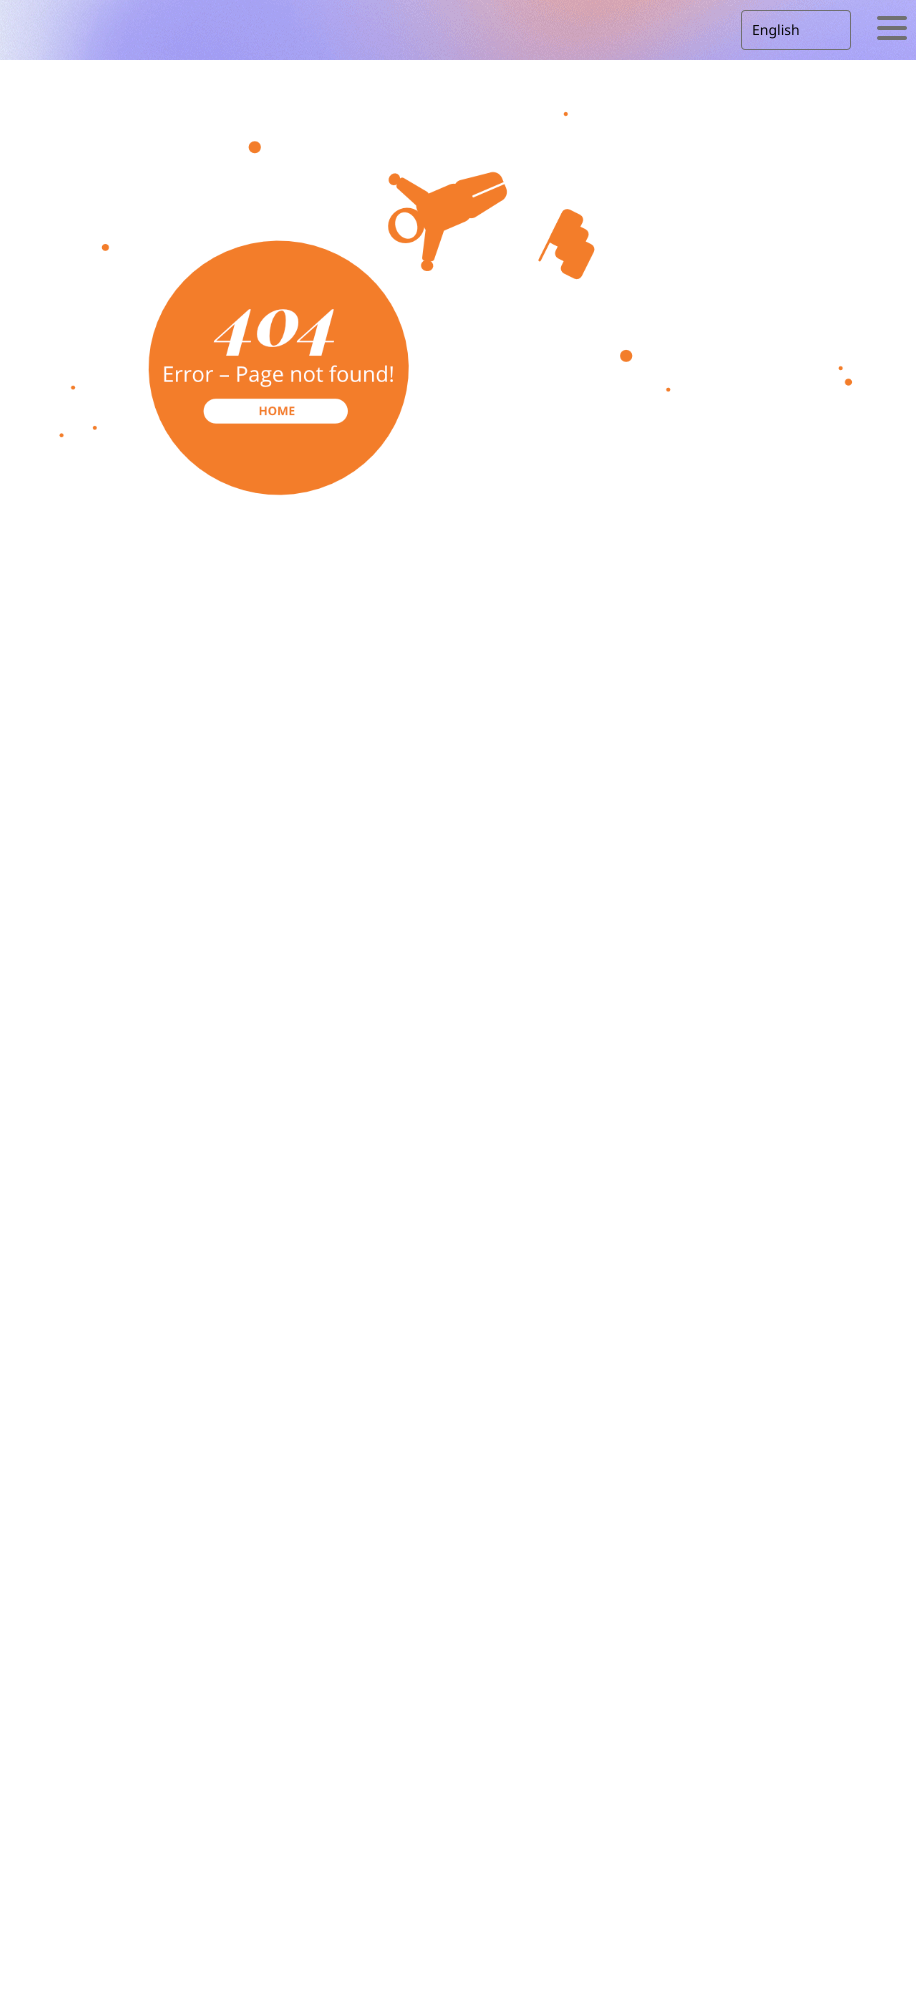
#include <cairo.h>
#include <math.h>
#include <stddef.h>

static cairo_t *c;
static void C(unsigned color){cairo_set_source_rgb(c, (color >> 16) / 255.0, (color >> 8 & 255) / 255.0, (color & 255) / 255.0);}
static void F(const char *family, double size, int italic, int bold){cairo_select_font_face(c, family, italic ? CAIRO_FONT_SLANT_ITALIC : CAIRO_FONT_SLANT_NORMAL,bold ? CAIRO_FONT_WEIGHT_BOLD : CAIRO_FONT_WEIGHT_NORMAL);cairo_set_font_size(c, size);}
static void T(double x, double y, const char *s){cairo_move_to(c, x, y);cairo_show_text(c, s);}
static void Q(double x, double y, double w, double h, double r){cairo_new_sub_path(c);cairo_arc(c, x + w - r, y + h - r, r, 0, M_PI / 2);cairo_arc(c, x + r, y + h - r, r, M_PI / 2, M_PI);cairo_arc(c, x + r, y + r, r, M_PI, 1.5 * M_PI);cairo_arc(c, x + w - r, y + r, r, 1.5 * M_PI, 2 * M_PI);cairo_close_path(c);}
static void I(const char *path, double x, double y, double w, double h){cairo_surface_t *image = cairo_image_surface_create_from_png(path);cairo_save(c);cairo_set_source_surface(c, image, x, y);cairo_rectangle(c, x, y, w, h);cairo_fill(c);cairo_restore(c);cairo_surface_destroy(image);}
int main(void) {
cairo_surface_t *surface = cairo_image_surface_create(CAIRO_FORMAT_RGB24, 916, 2000);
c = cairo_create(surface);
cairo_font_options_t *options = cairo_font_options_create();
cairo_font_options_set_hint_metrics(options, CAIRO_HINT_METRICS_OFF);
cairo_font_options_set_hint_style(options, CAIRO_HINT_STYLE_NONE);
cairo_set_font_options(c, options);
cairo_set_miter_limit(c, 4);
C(0xffffff);
cairo_paint(c);
I("1.png",0,0,916,60);
Q(741.5,10.5,109,39,3.5);
cairo_set_source_rgba(c,0.439,0.439,0.439,0.99);
cairo_set_line_width(c,1);
cairo_stroke(c);
F("Noto Sans",14,0,0);
C(0x070707);
T(752,35,"English");
cairo_set_source_rgba(c,0.439,0.439,0.439,0.99);
Q(877,16,30,4,2);
cairo_fill(c);
Q(877,26,30,4,2);
cairo_fill(c);
Q(877,36,30,4,2);
cairo_fill(c);
I("2.png",59,111,794,385);
cairo_surface_write_to_png(surface, "o.png");
cairo_font_options_destroy(options);
cairo_destroy(c);
cairo_surface_destroy(surface);
return 0;
}
